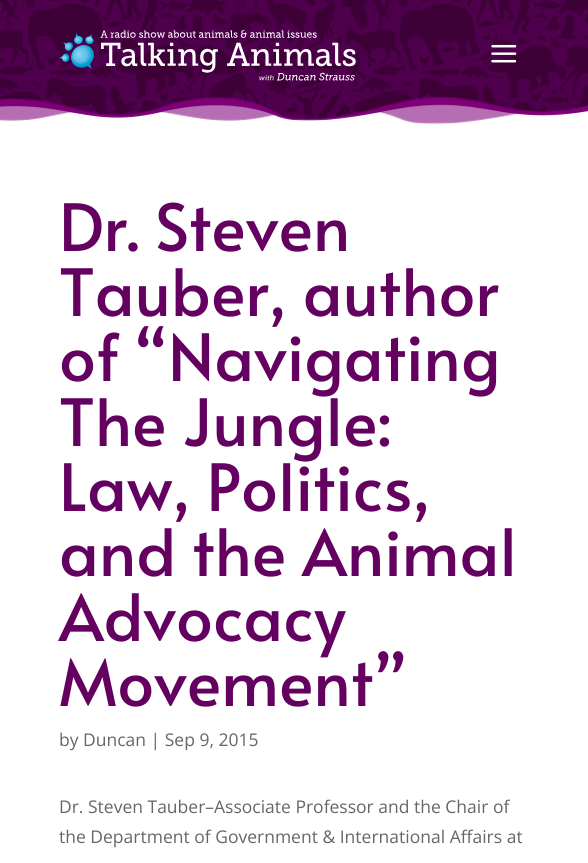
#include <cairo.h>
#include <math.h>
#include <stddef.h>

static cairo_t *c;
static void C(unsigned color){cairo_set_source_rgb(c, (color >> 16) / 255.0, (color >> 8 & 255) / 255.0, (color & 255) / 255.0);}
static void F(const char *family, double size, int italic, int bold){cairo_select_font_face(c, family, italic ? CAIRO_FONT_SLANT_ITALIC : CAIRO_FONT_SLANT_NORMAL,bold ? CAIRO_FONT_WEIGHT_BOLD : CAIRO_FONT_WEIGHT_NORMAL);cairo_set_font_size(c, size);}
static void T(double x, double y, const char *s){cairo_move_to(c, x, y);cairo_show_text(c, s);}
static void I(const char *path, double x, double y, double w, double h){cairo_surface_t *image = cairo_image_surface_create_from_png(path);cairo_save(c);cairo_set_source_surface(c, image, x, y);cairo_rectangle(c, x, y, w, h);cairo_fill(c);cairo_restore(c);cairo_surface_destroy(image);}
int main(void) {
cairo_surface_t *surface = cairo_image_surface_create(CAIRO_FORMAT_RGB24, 588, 863);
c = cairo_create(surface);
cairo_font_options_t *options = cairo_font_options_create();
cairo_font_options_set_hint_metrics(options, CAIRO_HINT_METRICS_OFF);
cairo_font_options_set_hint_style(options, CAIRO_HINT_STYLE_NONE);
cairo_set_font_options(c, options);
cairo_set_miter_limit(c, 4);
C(0xffffff);
cairo_paint(c);
I("1.png",0,0,588,125);
I("2.png",59,30,297,51);
I("3.png",491,44,26,19);
F("Alata",65,0,0);
C(0x630060);
T(59,251,"Dr. Steven");
T(59,316,"Tauber, author");
T(59,381,"of “Navigating");
T(59,446,"The Jungle:");
T(59,511,"Law, Politics,");
T(59,576,"and the Animal");
T(59,641,"Advocacy");
T(59,706,"Movement”");
F("Open Sans",17.5,0,0);
C(0x666666);
T(59,746,"by Duncan | Sep 9, 2015");
T(59,813,"Dr. Steven Tauber–Associate Professor and the Chair of");
T(59,843,"the Department of Government & International Affairs at");
cairo_surface_write_to_png(surface, "o.png");
cairo_font_options_destroy(options);
cairo_destroy(c);
cairo_surface_destroy(surface);
return 0;
}
